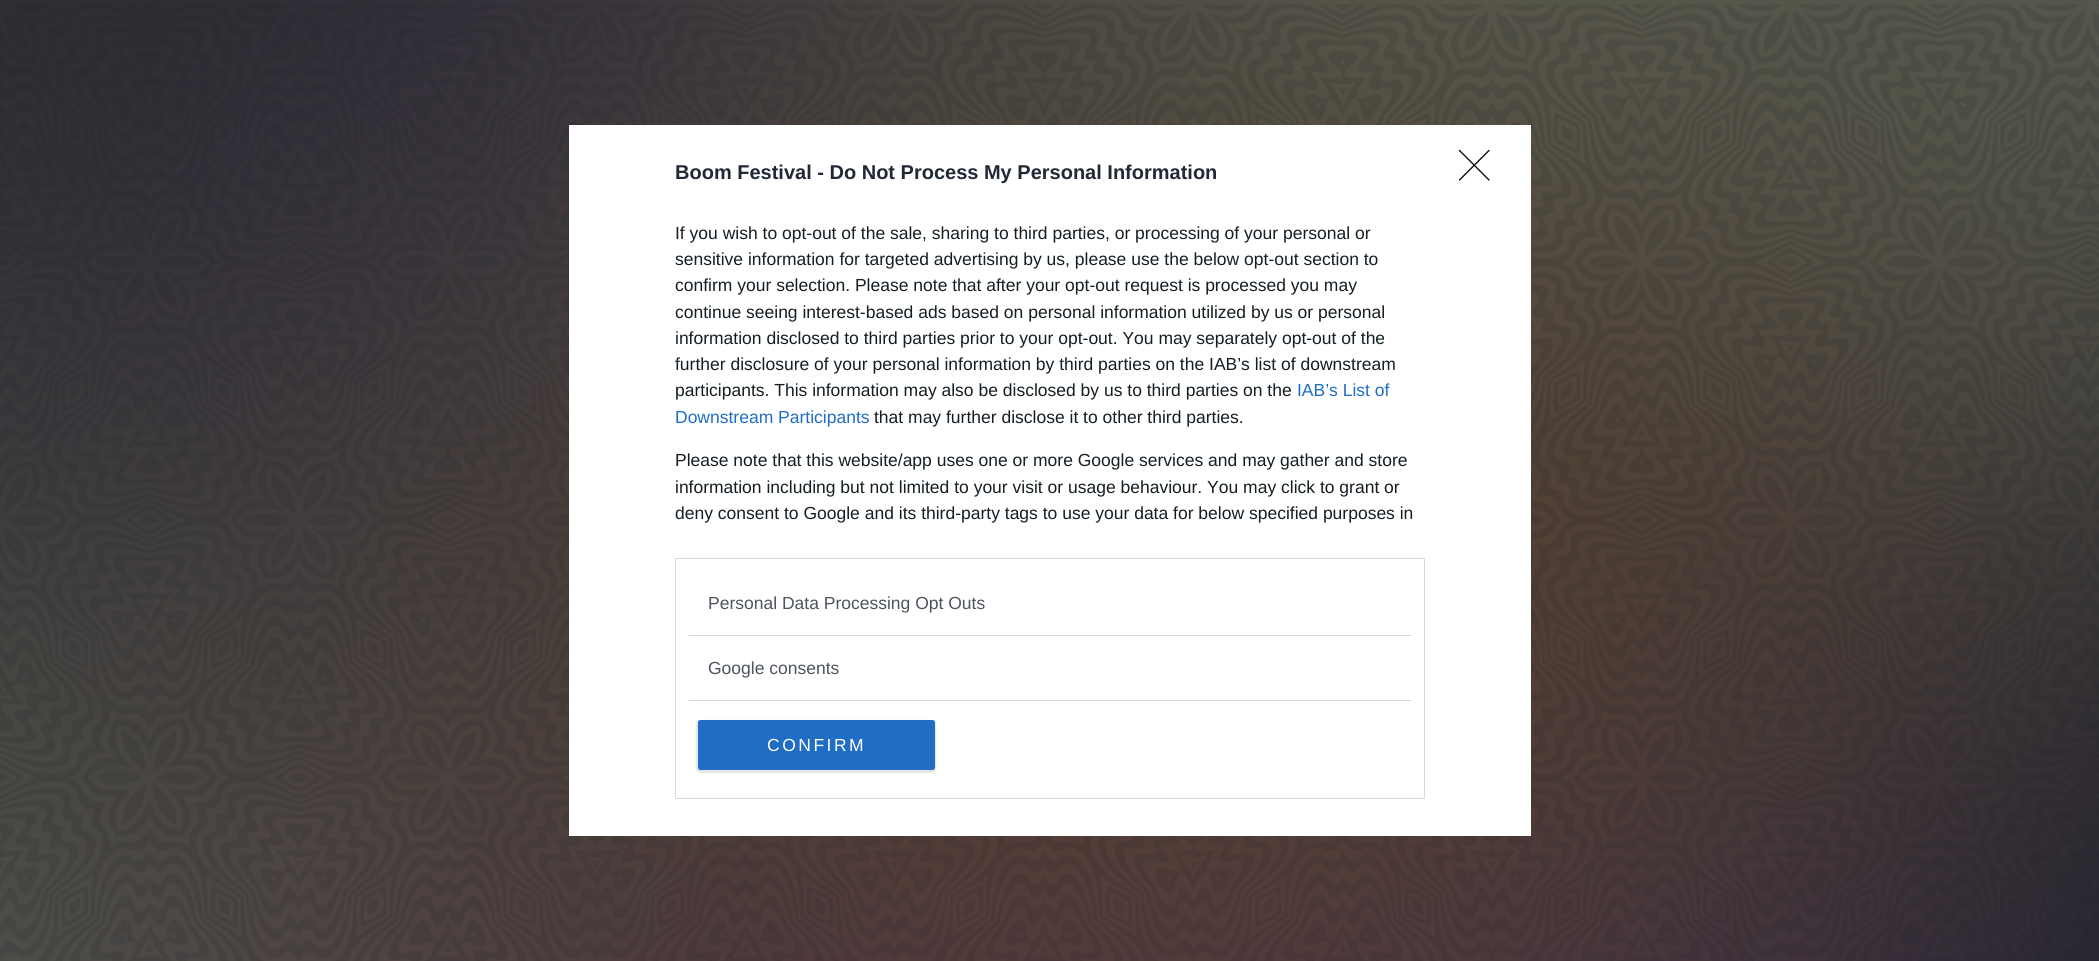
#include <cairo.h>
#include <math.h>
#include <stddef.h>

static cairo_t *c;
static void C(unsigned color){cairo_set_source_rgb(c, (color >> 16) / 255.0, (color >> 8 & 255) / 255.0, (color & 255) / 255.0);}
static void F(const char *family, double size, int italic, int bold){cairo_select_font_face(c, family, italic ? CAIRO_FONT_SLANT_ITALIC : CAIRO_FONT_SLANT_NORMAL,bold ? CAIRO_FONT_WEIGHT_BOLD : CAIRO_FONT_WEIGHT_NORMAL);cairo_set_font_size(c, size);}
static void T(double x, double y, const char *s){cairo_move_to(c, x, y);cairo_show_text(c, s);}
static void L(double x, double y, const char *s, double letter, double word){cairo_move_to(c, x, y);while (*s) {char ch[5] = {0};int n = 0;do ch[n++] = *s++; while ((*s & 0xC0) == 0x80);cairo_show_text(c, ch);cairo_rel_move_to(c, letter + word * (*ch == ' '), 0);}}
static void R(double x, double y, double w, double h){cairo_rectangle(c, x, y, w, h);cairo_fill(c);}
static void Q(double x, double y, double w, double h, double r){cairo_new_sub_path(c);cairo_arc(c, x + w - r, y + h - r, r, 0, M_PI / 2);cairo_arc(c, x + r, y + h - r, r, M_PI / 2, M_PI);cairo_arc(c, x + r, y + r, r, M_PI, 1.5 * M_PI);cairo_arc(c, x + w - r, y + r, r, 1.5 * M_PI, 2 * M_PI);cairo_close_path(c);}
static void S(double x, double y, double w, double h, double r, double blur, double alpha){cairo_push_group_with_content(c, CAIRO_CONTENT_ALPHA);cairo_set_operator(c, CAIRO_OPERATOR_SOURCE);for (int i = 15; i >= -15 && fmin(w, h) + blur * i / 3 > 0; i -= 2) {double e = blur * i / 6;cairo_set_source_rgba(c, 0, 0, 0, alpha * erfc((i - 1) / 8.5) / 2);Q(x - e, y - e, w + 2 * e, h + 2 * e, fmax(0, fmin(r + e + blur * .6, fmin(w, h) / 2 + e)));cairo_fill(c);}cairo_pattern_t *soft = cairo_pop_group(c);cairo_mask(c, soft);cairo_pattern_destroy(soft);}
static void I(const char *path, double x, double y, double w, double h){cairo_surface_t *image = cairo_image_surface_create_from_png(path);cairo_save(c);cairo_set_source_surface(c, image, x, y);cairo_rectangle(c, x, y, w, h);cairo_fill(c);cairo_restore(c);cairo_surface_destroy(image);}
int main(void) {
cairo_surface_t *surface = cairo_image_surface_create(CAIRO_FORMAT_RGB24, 2099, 961);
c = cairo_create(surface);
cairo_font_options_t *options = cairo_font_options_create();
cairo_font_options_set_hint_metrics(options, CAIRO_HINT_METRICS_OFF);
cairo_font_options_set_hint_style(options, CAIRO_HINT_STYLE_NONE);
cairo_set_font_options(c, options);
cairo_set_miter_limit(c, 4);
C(0xffffff);
cairo_paint(c);
I("1.png",0,0,2099,961);
I("2.png",0,4,2099,957);
C(0xffffff);
R(569,125,962,711);
F("Liberation Sans",20,0,1);
C(0x212934);
T(675,179,"Boom Festival - Do Not Process My Personal Information");
F("Liberation Sans",17.5,0,0);
C(0x141e23);
T(675,239,"If you wish to opt-out of the sale, sharing to third parties, or processing of your personal or");
T(675,265,"sensitive information for targeted advertising by us, please use the below opt-out section to");
T(675,291,"confirm your selection. Please note that after your opt-out request is processed you may");
T(675,318,"continue seeing interest-based ads based on personal information utilized by us or personal");
T(675,344,"information disclosed to third parties prior to your opt-out. You may separately opt-out of the");
T(675,370,"further disclosure of your personal information by third parties on the IAB’s list of downstream");
T(675,396,"participants. This information may also be disclosed by us to third parties on the");
C(0x206dc5);
T(1297,396,"IAB’s List of");
T(675,423,"Downstream Participants");
C(0x141e23);
T(874,423,"that may further disclose it to other third parties.");
T(675,466,"Please note that this website/app uses one or more Google services and may gather and store");
T(675,493,"information including but not limited to your visit or usage behaviour. You may click to grant or");
T(675,519,"deny consent to Google and its third-party tags to use your data for below specified purposes in");
cairo_rectangle(c,675.5,558.5,749,240);
C(0xd8d8d8);
cairo_set_line_width(c,1);
cairo_stroke(c);
R(689,635,722,1);
C(0x4d545d);
T(708,609,"Personal Data Processing Opt Outs");
C(0xd8d8d8);
R(689,700,722,1);
C(0x4d545d);
T(708,674,"Google consents");
C(0x000000);
S(696,720,240,53,4,.5,.1);
C(0x206dc5);
Q(698,720,237,50,2.5);
cairo_fill(c);
C(0xffffff);
L(767,751,"CONFIRM",2.5,0);
cairo_new_path(c);
cairo_move_to(c,1459.5,150.5);
cairo_line_to(c,1489,180);
cairo_move_to(c,1489,150.5);
cairo_line_to(c,1459.5,180);
C(0x000000);
cairo_set_line_width(c,1.3);
cairo_set_line_cap(c,CAIRO_LINE_CAP_ROUND);
cairo_set_line_join(c,CAIRO_LINE_JOIN_ROUND);
cairo_stroke(c);
cairo_surface_write_to_png(surface, "o.png");
cairo_font_options_destroy(options);
cairo_destroy(c);
cairo_surface_destroy(surface);
return 0;
}
